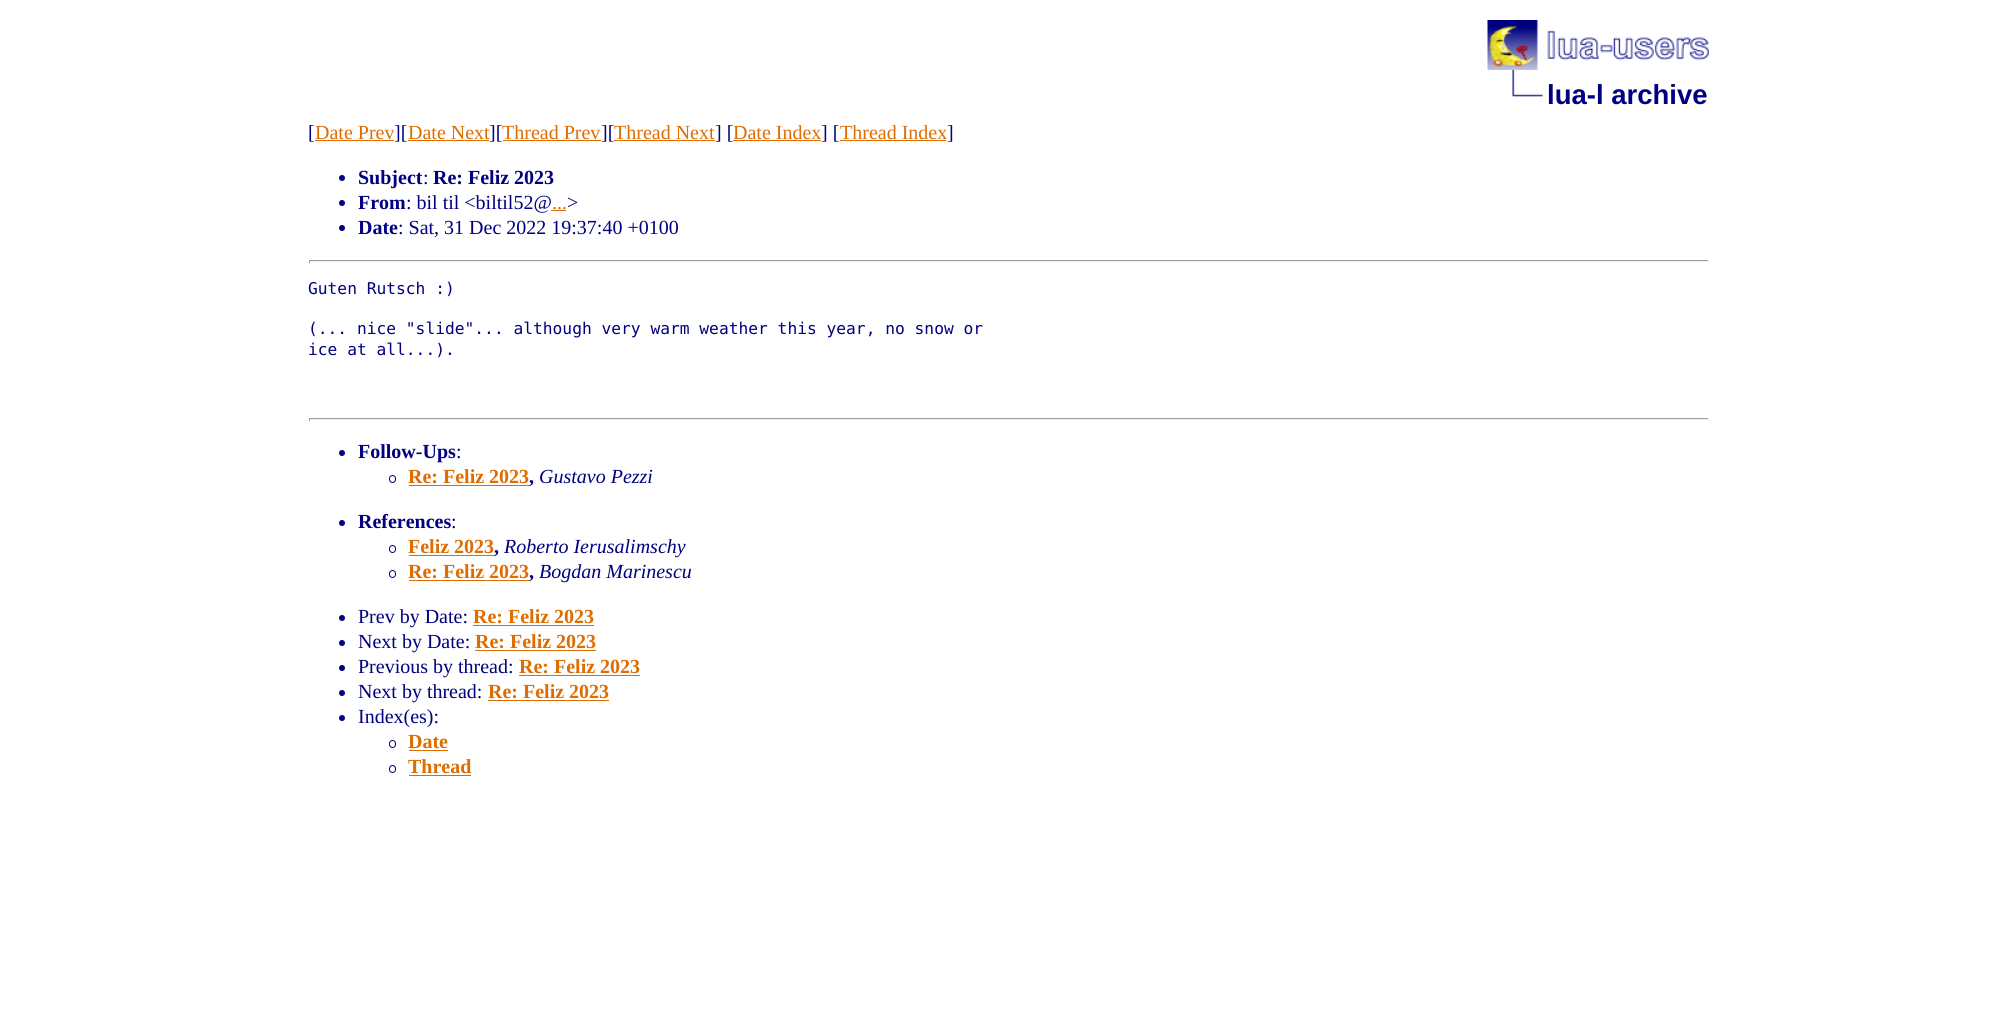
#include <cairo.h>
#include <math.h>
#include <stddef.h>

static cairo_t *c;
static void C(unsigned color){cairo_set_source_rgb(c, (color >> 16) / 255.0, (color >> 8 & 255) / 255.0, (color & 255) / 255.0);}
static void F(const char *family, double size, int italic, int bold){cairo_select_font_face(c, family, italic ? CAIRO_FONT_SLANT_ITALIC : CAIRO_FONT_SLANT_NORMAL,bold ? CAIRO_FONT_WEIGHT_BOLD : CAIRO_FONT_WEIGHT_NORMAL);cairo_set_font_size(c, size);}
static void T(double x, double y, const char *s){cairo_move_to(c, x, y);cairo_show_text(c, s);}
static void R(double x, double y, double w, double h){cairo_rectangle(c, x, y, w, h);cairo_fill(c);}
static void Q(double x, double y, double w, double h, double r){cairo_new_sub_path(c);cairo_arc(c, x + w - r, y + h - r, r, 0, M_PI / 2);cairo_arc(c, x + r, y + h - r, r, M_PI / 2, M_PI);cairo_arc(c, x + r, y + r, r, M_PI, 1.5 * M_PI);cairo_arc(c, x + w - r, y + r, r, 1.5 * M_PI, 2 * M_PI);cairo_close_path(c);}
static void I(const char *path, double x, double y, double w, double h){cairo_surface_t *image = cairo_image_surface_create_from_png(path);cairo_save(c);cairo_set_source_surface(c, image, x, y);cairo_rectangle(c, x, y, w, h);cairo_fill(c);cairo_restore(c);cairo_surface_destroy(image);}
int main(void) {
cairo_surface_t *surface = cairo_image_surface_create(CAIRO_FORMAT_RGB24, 2016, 1014);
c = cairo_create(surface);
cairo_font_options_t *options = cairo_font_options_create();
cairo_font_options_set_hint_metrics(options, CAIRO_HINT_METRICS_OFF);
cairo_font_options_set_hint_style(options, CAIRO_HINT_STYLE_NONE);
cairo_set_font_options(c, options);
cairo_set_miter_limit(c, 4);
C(0xffffff);
cairo_paint(c);
I("1.png",1487,20,222,50);
I("2.png",1512,70,32,27);
F("Liberation Sans",27.5,0,1);
C(0x000080);
T(1547,104,"lua-l archive");
F("Liberation Serif",20,0,0);
T(308,139,"[");
C(0xdf6c00);
T(315,139,"Date Prev");
R(315,140,79,1);
C(0x000080);
T(394,139,"][");
C(0xdf6c00);
T(408,139,"Date Next");
R(408,140,81,1);
C(0x000080);
T(489,139,"][");
C(0xdf6c00);
T(502,139,"Thread Prev");
R(503,140,98,1);
C(0x000080);
T(601,139,"][");
C(0xdf6c00);
T(614,139,"Thread Next");
R(614,140,101,1);
C(0x000080);
T(715,139,"] [");
C(0xdf6c00);
T(733,139,"Date Index");
R(733,140,88,1);
C(0x000080);
T(821,139,"] [");
C(0xdf6c00);
T(840,139,"Thread Index");
R(840,140,106,1);
C(0x000080);
T(947,139,"]");
cairo_new_path(c);
cairo_arc(c,342,178,3,0,2 * M_PI);
cairo_fill(c);
F("Liberation Serif",20,0,1);
T(358,184,"Subject");
F("Liberation Serif",20,0,0);
T(423,184,":");
F("Liberation Serif",20,0,1);
T(433,184,"Re: Feliz 2023");
cairo_new_path(c);
cairo_arc(c,342,203,3,0,2 * M_PI);
cairo_fill(c);
T(358,209,"From");
F("Liberation Serif",20,0,0);
T(406,209,": bil til <biltil52@");
T(567,209,">");
C(0xdf6c00);
T(552,209,"...");
R(551,210,15,1);
C(0x000080);
cairo_new_path(c);
cairo_arc(c,342,228,3,0,2 * M_PI);
cairo_fill(c);
F("Liberation Serif",20,0,1);
T(358,234,"Date");
F("Liberation Serif",20,0,0);
T(398,234,": Sat, 31 Dec 2022 19:37:40 +0100");
C(0x9f9f9f);
R(309,260,1400,1);
C(0xeeeeee);
R(1708,260,1,3);
R(309,261,1400,1);
C(0x9f9f9f);
R(309,260,1,3);
F("DejaVu Sans Mono",16.25,0,0);
C(0x000080);
T(308,294,"Guten Rutsch :)");
T(308,334,"(... nice \"slide\"... although very warm weather this year, no snow or");
T(308,355,"ice at all...).");
C(0x9f9f9f);
R(309,418,1400,1);
C(0xeeeeee);
R(1708,418,1,3);
R(309,419,1400,1);
C(0x9f9f9f);
R(309,418,1,3);
C(0x000080);
cairo_new_path(c);
cairo_arc(c,342,453,3,0,2 * M_PI);
cairo_fill(c);
F("Liberation Serif",20,0,1);
T(358,458,"Follow-Ups");
F("Liberation Serif",20,0,0);
T(456,458,":");
Q(389.5,475.5,6,7,3);
cairo_set_line_width(c,1);
cairo_stroke(c);
F("Liberation Serif",20,0,1);
C(0xdf6c00);
T(408,483,"Re: Feliz 2023");
C(0x000080);
T(529,483,",");
C(0xdf6c00);
R(409,485,120,1);
F("Liberation Serif",20,1,0);
C(0x000080);
T(539,483,"Gustavo Pezzi");
cairo_new_path(c);
cairo_arc(c,342,523,3,0,2 * M_PI);
cairo_fill(c);
F("Liberation Serif",20,0,1);
T(358,528,"References");
F("Liberation Serif",20,0,0);
T(451,528,":");
Q(389.5,545.5,6,7,3);
cairo_stroke(c);
F("Liberation Serif",20,0,1);
C(0xdf6c00);
T(408,553,"Feliz 2023");
C(0x000080);
T(494,553,",");
C(0xdf6c00);
R(409,555,85,1);
F("Liberation Serif",20,1,0);
C(0x000080);
T(504,553,"Roberto Ierusalimschy");
Q(389.5,570.5,6,7,3);
cairo_stroke(c);
F("Liberation Serif",20,0,1);
C(0xdf6c00);
T(408,578,"Re: Feliz 2023");
C(0x000080);
T(529,578,",");
C(0xdf6c00);
R(409,580,120,1);
F("Liberation Serif",20,1,0);
C(0x000080);
T(539,578,"Bogdan Marinescu");
cairo_new_path(c);
cairo_arc(c,342,618,3,0,2 * M_PI);
cairo_fill(c);
F("Liberation Serif",20,0,0);
T(358,623,"Prev by Date:");
F("Liberation Serif",20,0,1);
C(0xdf6c00);
T(473,623,"Re: Feliz 2023");
R(473,625,121,1);
C(0x000080);
cairo_new_path(c);
cairo_arc(c,342,643,3,0,2 * M_PI);
cairo_fill(c);
F("Liberation Serif",20,0,0);
T(358,648,"Next by Date:");
F("Liberation Serif",20,0,1);
C(0xdf6c00);
T(475,648,"Re: Feliz 2023");
R(475,650,121,1);
C(0x000080);
cairo_new_path(c);
cairo_arc(c,342,668,3,0,2 * M_PI);
cairo_fill(c);
F("Liberation Serif",20,0,0);
T(358,673,"Previous by thread:");
F("Liberation Serif",20,0,1);
C(0xdf6c00);
T(519,673,"Re: Feliz 2023");
R(519,675,121,1);
C(0x000080);
cairo_new_path(c);
cairo_arc(c,342,693,3,0,2 * M_PI);
cairo_fill(c);
F("Liberation Serif",20,0,0);
T(358,698,"Next by thread:");
F("Liberation Serif",20,0,1);
C(0xdf6c00);
T(488,698,"Re: Feliz 2023");
R(488,700,121,1);
C(0x000080);
cairo_new_path(c);
cairo_arc(c,342,718,3,0,2 * M_PI);
cairo_fill(c);
F("Liberation Serif",20,0,0);
T(358,723,"Index(es):");
Q(389.5,740.5,6,7,3);
cairo_stroke(c);
F("Liberation Serif",20,0,1);
C(0xdf6c00);
T(408,748,"Date");
R(409,750,39,1);
Q(389.5,765.5,6,7,3);
C(0x000080);
cairo_stroke(c);
C(0xdf6c00);
T(408,773,"Thread");
R(409,775,62,1);
cairo_surface_write_to_png(surface, "o.png");
cairo_font_options_destroy(options);
cairo_destroy(c);
cairo_surface_destroy(surface);
return 0;
}
